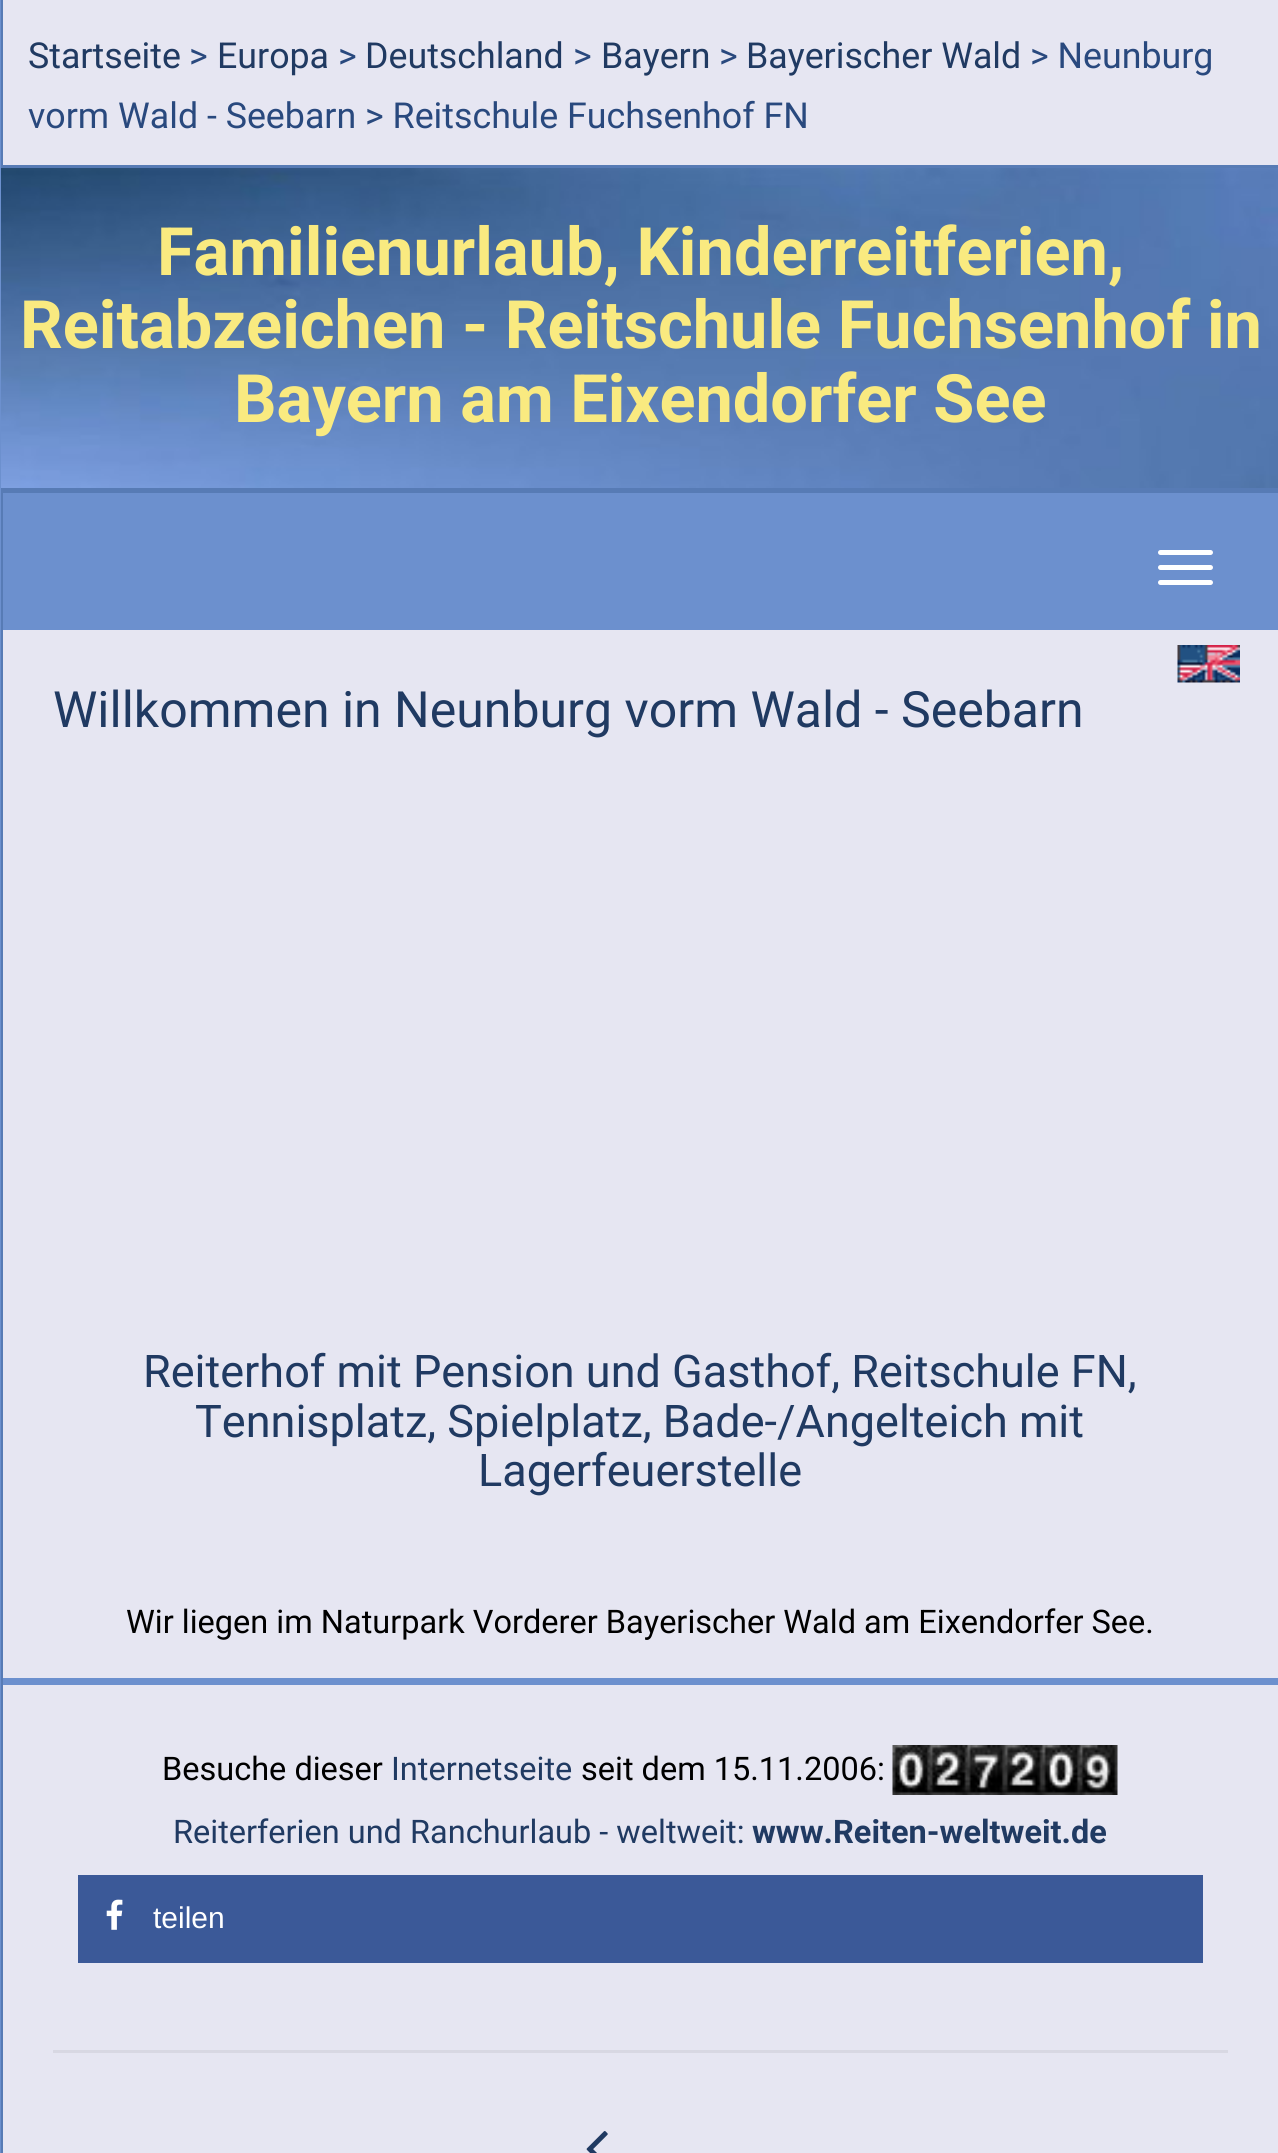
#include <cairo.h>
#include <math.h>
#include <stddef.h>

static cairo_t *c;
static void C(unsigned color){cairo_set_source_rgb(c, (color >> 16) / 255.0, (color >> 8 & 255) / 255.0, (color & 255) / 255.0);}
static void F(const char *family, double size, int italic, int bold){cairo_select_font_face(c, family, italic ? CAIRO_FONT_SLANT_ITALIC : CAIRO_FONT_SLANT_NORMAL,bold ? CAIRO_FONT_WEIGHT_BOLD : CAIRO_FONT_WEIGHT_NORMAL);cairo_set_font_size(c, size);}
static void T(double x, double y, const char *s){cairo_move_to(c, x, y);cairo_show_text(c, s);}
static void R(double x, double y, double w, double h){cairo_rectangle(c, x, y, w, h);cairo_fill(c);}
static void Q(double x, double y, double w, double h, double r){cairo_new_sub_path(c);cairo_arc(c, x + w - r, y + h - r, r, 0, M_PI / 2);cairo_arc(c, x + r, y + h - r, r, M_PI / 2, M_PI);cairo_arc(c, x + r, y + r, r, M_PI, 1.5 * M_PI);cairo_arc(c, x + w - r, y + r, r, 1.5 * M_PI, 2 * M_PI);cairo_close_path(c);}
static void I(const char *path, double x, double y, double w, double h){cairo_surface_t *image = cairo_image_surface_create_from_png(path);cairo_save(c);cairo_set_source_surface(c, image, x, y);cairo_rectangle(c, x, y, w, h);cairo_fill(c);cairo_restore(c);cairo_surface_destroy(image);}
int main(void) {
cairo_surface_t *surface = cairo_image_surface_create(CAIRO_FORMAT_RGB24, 1278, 2153);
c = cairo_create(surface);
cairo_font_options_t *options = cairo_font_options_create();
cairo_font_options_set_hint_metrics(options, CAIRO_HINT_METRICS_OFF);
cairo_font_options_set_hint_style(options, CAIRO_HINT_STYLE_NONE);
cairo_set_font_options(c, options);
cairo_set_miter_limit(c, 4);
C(0xe6e6f2);
cairo_paint(c);
C(0x577bb5);
R(1,0,2,165);
F("Roboto",35.75,0,0);
C(0x203a62);
T(28,68,"Startseite");
C(0x29497e);
T(189,68,">");
C(0x203a62);
T(217,68,"Europa");
C(0x29497e);
T(338,68,">");
C(0x203a62);
T(365,68,"Deutschland");
C(0x29497e);
T(573,68,">");
C(0x203a62);
T(601,68,"Bayern");
C(0x29497e);
T(719,68,">");
C(0x203a62);
T(746,68,"Bayerischer Wald");
C(0x29497e);
T(1030,68,"> Neunburg");
T(28,128,"vorm Wald - Seebarn > Reitschule Fuchsenhof FN");
I("1.png",1,168,1277,320);
C(0x577bb5);
R(0,165,1278,3);
R(0,488,1278,5);
F("Roboto",66.7,0,1);
C(0xf9ea80);
T(157,275,"Familienurlaub, Kinderreitferien,");
T(20,348,"Reitabzeichen - Reitschule Fuchsenhof in");
T(234,422,"Bayern am Eixendorfer See");
C(0x577bb5);
R(1,493,2,1660);
C(0x6c90ce);
R(3,493,1275,137);
R(3,1678,1275,7);
R(0,0,1,2153);
C(0xffffff);
Q(1158,550,55,5,2.5);
cairo_fill(c);
Q(1158,565,55,5,2.5);
cairo_fill(c);
Q(1158,580,55,5,2.5);
cairo_fill(c);
I("2.png",1177,645,63,38);
F("Roboto",50,0,0);
C(0x203a62);
T(53,727,"Willkommen in Neunburg vorm Wald - Seebarn");
F("Roboto",45,0,0);
T(143,1387,"Reiterhof mit Pension und Gasthof, Reitschule FN,");
T(195,1437,"Tennisplatz, Spielplatz, Bade-/Angelteich mit");
T(478,1486,"Lagerfeuerstelle");
F("Roboto",32.5,0,0);
C(0x000000);
T(126,1633,"Wir liegen im Naturpark Vorderer Bayerischer Wald am Eixendorfer See.");
T(162,1780,"Besuche dieser");
C(0x203a62);
T(391,1780,"Internetseite");
C(0x000000);
T(581,1780,"seit dem 15.11.2006:");
I("3.png",892,1745,226,50);
C(0x203a62);
T(173,1843,"Reiterferien und Ranchurlaub - weltweit:");
F("Roboto",32.5,0,1);
T(752,1843,"www.Reiten-weltweit.de");
C(0x3b5998);
R(78,1875,1125,88);
I("4.png",106,1899,17,31);
F("Liberation Sans",30,0,0);
C(0xffffff);
T(153,1928,"teilen");
C(0xd8d8e3);
R(53,2050,1175,3);
I("5.png",586,2131,22,22);
cairo_surface_write_to_png(surface, "o.png");
cairo_font_options_destroy(options);
cairo_destroy(c);
cairo_surface_destroy(surface);
return 0;
}
